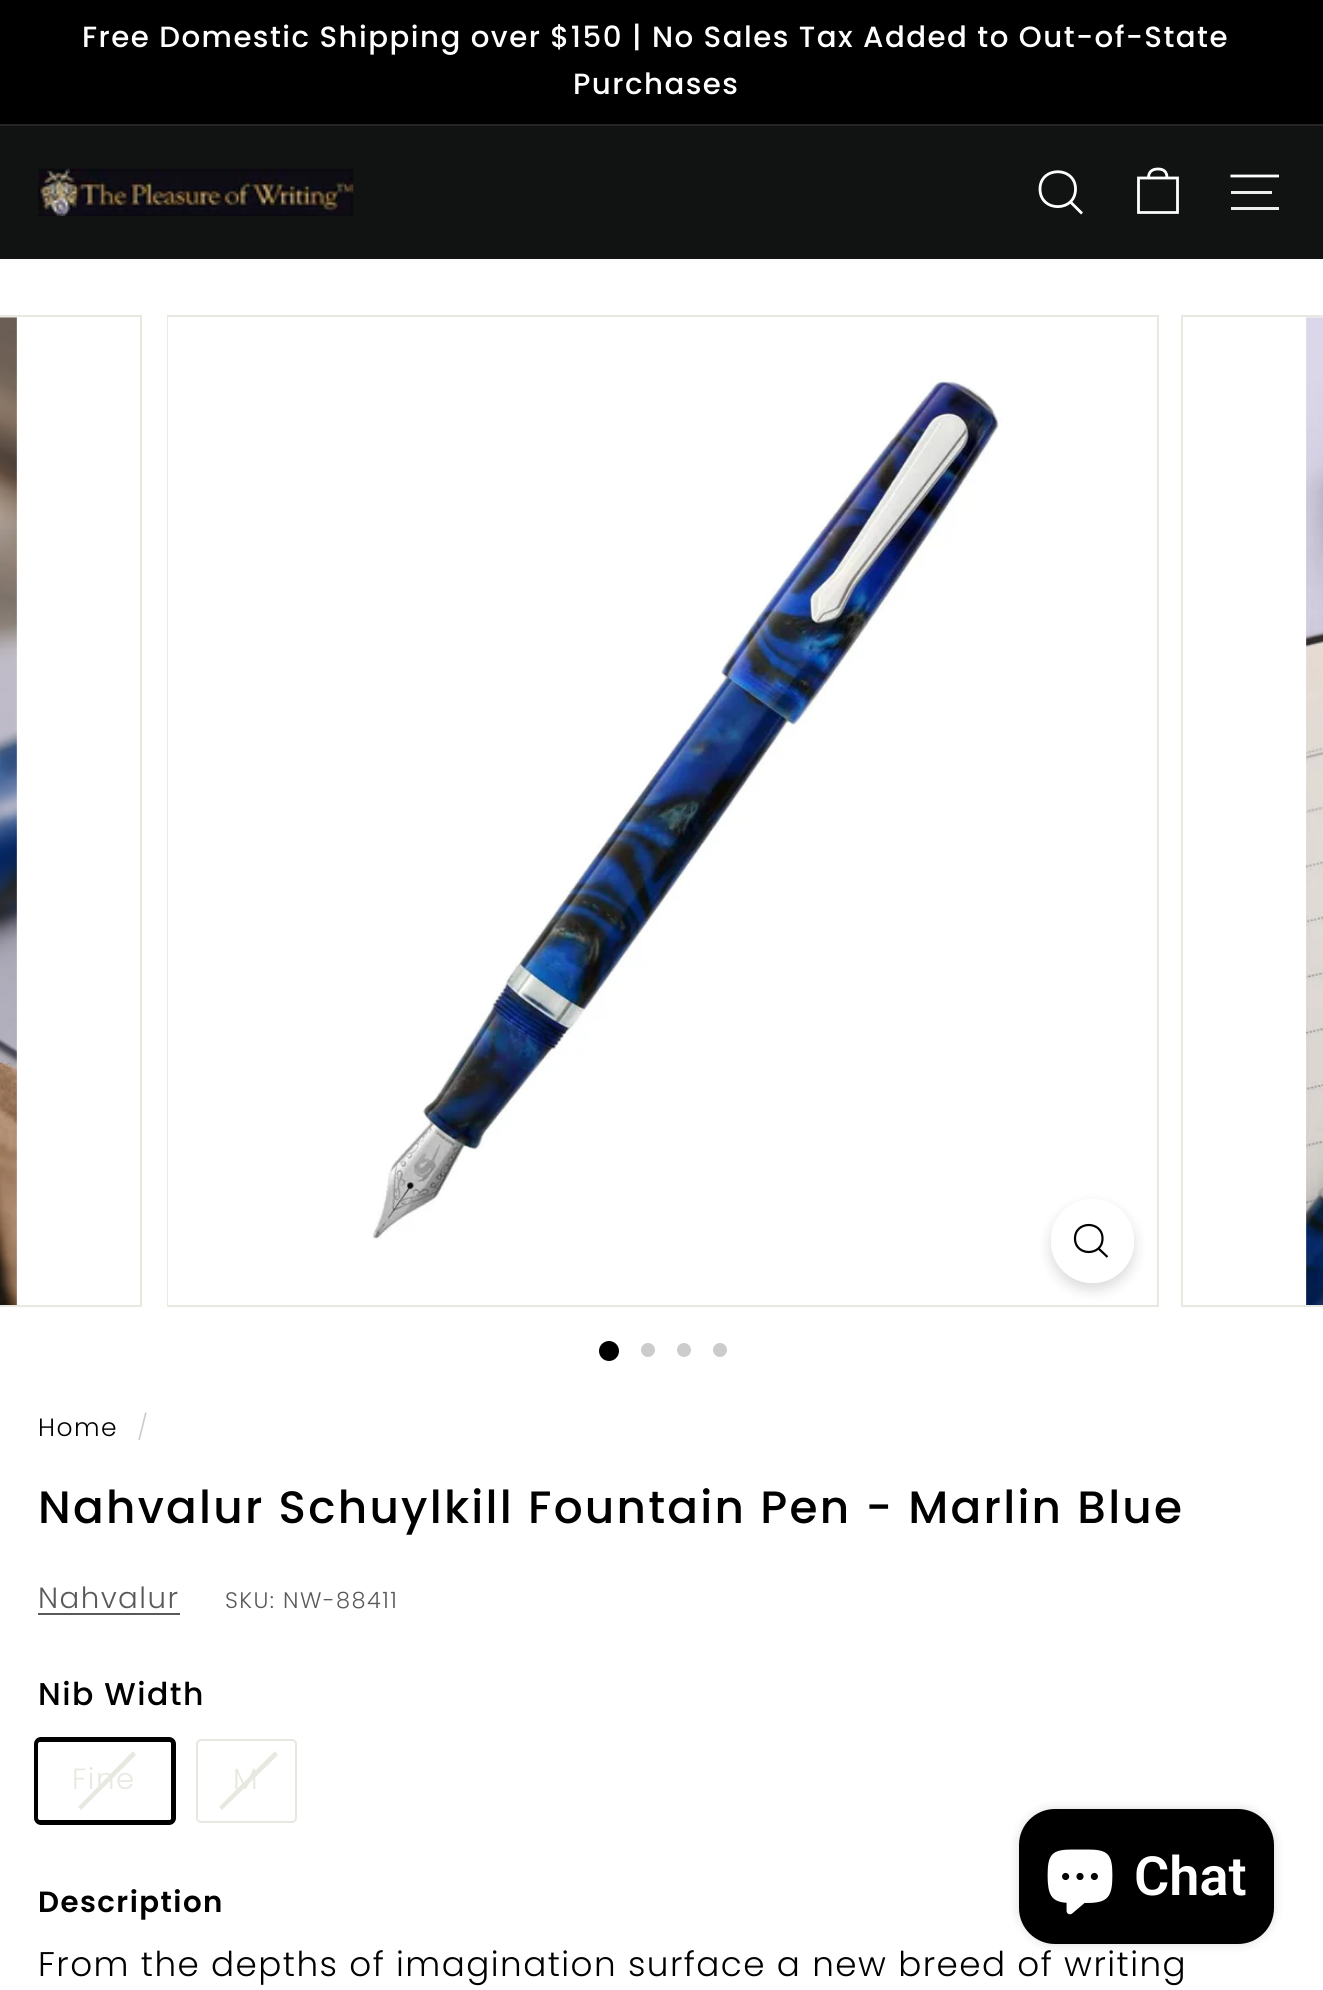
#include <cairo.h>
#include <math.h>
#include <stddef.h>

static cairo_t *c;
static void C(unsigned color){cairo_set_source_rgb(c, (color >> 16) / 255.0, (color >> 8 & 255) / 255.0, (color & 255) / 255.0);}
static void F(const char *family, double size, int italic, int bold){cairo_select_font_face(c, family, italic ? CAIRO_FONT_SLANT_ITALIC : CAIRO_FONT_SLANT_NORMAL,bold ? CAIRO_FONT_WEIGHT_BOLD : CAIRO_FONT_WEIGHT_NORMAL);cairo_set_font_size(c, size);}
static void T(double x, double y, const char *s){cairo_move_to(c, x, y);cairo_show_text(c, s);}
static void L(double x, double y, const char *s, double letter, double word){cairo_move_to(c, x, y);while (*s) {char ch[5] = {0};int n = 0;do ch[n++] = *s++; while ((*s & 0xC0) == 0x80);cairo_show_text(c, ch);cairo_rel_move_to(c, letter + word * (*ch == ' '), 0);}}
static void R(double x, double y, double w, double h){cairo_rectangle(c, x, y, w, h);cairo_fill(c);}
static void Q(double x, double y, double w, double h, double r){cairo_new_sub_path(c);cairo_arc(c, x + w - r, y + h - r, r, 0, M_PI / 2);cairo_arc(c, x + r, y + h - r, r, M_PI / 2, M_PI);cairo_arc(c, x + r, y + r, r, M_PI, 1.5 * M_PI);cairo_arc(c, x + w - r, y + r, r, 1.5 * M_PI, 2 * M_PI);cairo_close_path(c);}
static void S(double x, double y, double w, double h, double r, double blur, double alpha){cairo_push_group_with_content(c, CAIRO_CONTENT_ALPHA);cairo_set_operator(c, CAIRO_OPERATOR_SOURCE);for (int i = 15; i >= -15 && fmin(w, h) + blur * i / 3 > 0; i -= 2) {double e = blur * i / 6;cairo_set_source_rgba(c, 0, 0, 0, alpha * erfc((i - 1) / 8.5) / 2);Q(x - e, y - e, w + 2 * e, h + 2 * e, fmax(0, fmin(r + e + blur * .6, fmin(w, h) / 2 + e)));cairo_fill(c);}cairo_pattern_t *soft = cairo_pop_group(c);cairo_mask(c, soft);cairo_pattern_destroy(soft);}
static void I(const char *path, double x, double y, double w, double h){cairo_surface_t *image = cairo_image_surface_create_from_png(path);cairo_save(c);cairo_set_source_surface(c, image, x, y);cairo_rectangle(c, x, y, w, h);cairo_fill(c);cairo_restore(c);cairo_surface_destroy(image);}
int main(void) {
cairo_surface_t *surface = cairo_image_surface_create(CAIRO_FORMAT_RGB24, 1323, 1990);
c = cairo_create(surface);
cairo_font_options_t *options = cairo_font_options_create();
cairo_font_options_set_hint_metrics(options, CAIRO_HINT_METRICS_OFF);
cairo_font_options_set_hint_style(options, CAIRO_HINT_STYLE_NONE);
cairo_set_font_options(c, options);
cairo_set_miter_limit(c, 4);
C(0xffffff);
cairo_paint(c);
C(0x000000);
R(0,0,1323,124);
F("Poppins Medium",29.25,0,0);
C(0xffffff);
L(82,47,"Free Domestic Shipping over $150 | No Sales Tax Added to Out-of-State",1.45,0);
L(573,94,"Purchases",1.45,0);
C(0x262626);
R(0,124,1323,2);
C(0x111212);
R(0,126,1323,133);
I("1.png",38,168,316,48);
cairo_new_path(c);
cairo_move_to(c,1075.5,189);
cairo_curve_to(c,1075.5,212.5,1040,212.5,1040,189);
cairo_curve_to(c,1040,166,1075.5,166,1075.5,189);
cairo_move_to(c,1082,213.5);
cairo_line_to(c,1070.5,202);
C(0xffffff);
cairo_set_line_width(c,2.8);
cairo_stroke(c);
cairo_new_path(c);
cairo_move_to(c,1148.5,178);
cairo_curve_to(c,1148.5,171,1153,169,1158,169);
cairo_curve_to(c,1163,169,1167,171,1167,178);
cairo_move_to(c,1138.5,178);
cairo_line_to(c,1177.5,178);
cairo_line_to(c,1177.5,212.5);
cairo_line_to(c,1138.5,212.5);
cairo_close_path(c);
cairo_stroke(c);
cairo_new_path(c);
cairo_move_to(c,1230.5,176);
cairo_line_to(c,1279,176);
cairo_stroke(c);
C(0xefefef);
R(1231,191,41,3);
R(1231,207,48,3);
cairo_rectangle(c,-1,316,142,990);
C(0xe8e8e1);
cairo_set_line_width(c,2);
cairo_stroke(c);
I("2.png",0,317,17,988);
cairo_rectangle(c,168,316,990,990);
cairo_stroke(c);
I("3.png",167,317,835,988);
cairo_save(c);
cairo_set_fill_rule(c,CAIRO_FILL_RULE_EVEN_ODD);
cairo_new_path(c);
cairo_move_to(c,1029,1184);
cairo_line_to(c,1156,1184);
cairo_line_to(c,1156,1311);
cairo_line_to(c,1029,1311);
cairo_close_path(c);
cairo_move_to(c,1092.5,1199);
cairo_curve_to(c,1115.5,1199,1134,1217.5,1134,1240.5);
cairo_line_to(c,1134,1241.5);
cairo_curve_to(c,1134,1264.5,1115.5,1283,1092.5,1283);
cairo_curve_to(c,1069.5,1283,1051,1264.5,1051,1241.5);
cairo_line_to(c,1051,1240.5);
cairo_curve_to(c,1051,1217.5,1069.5,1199,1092.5,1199);
cairo_close_path(c);
cairo_clip(c);
C(0x000000);
S(1051,1206,83,83,41.5,7,.15);
cairo_restore(c);
C(0xffffff);
Q(1051,1199,83,84,41.5);
cairo_fill(c);
cairo_new_path(c);
cairo_move_to(c,1102.5,1238.5);
cairo_curve_to(c,1102.5,1256.5,1075,1256.5,1075,1238.5);
cairo_curve_to(c,1075,1220.5,1102.5,1220.5,1102.5,1238.5);
cairo_move_to(c,1107.5,1257);
cairo_line_to(c,1098.5,1248.5);
C(0x000000);
cairo_set_line_width(c,2.2);
cairo_stroke(c);
cairo_rectangle(c,1182,316,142,990);
C(0xe8e8e1);
cairo_set_line_width(c,2);
cairo_stroke(c);
I("4.png",1306,317,17,988);
C(0x000000);
cairo_arc(c,609,1351,10,0,2 * M_PI);
cairo_fill(c);
C(0xcccccc);
cairo_arc(c,648,1350,7,0,2 * M_PI);
cairo_fill(c);
cairo_arc(c,684,1350,7,0,2 * M_PI);
cairo_fill(c);
cairo_arc(c,720,1350,7,0,2 * M_PI);
cairo_fill(c);
F("Poppins Light",25,0,0);
C(0x000000);
L(38,1436,"Home",1.45,0);
C(0xcccccc);
L(137,1436,"/",1.45,0);
F("Poppins Medium",45.35,0,0);
C(0x000000);
L(38,1523,"Nahvalur Schuylkill Fountain Pen - Marlin Blue",2.25,0);
F("Poppins Light",29.25,0,0);
C(0x595959);
L(38,1608,"Nahvalur",1.45,0);
R(38,1613,142,2);
F("Poppins Light",22.5,0,0);
L(225,1608,"SKU: NW-88411",1.45,0);
F("Poppins Medium",31.5,0,0);
C(0x000000);
L(38,1705,"Nib Width",1.45,0);
Q(36.5,1739.5,137,83,4.5);
cairo_set_line_width(c,5);
cairo_stroke(c);
C(0xffffff);
Q(38,1742,133,78,2);
cairo_fill(c);
C(0xe8e8e1);
cairo_new_path(c);
cairo_move_to(c,133,1751);
cairo_line_to(c,136,1755);
cairo_line_to(c,81,1810);
cairo_line_to(c,78,1807);
cairo_close_path(c);
cairo_fill(c);
F("Poppins Light",29.25,0,0);
L(72,1789,"Fine",1.45,0);
Q(197,1740,99,82,4);
cairo_set_line_width(c,2);
cairo_stroke(c);
C(0xffffff);
Q(198,1742,97,78,2);
cairo_fill(c);
C(0xe8e8e1);
cairo_new_path(c);
cairo_move_to(c,275,1751);
cairo_line_to(c,278,1755);
cairo_line_to(c,222,1810);
cairo_line_to(c,219,1807);
cairo_close_path(c);
cairo_fill(c);
L(233,1789,"M",1.45,0);
F("Poppins SemiBold",29.25,0,0);
C(0x000000);
L(38,1912,"Description",1.45,0);
F("Poppins Light",34.2,0,0);
L(38,1976,"From the depths of imagination surface a new breed of writing",1.45,0);
C(0x000000);
S(1019,1809,255,135,36,5.5,.15);
C(0x000000);
Q(1019,1809,255,135,36);
cairo_fill(c);
I("5.png",1047,1849,66,66);
F("Roboto SemiBold",54,0,0);
C(0xffffff);
T(1134,1895,"Chat");
cairo_surface_write_to_png(surface, "o.png");
cairo_font_options_destroy(options);
cairo_destroy(c);
cairo_surface_destroy(surface);
return 0;
}
